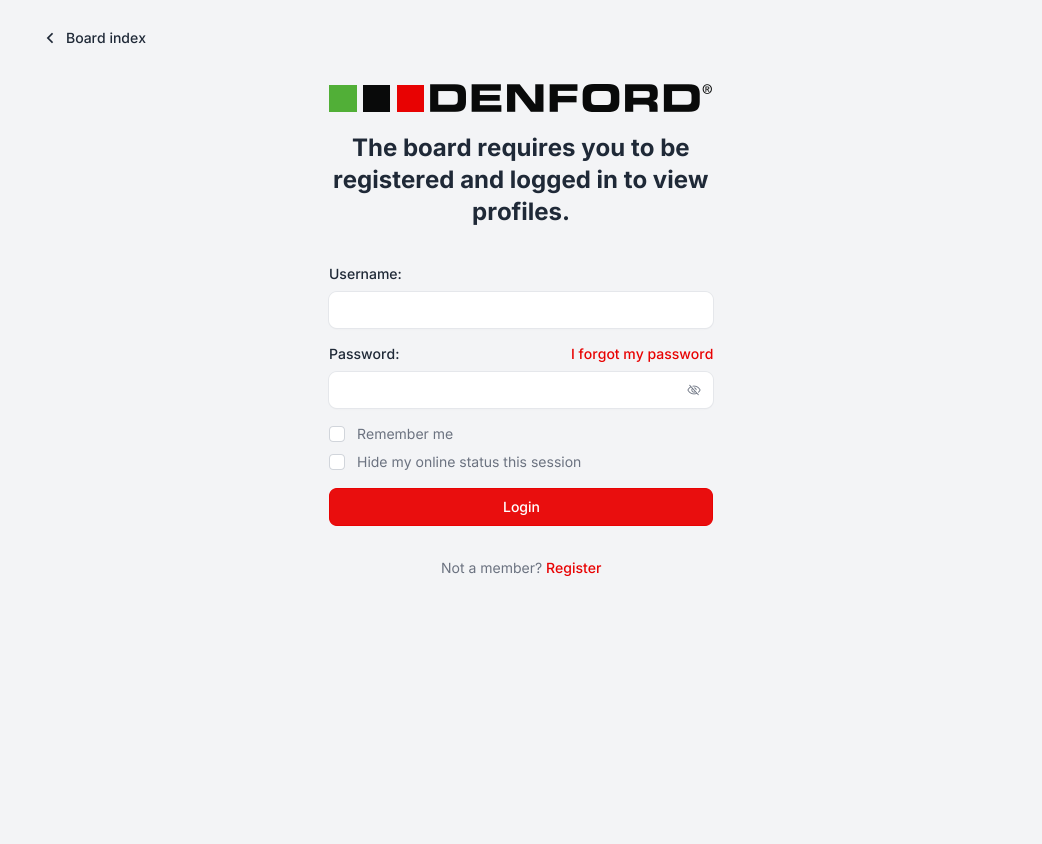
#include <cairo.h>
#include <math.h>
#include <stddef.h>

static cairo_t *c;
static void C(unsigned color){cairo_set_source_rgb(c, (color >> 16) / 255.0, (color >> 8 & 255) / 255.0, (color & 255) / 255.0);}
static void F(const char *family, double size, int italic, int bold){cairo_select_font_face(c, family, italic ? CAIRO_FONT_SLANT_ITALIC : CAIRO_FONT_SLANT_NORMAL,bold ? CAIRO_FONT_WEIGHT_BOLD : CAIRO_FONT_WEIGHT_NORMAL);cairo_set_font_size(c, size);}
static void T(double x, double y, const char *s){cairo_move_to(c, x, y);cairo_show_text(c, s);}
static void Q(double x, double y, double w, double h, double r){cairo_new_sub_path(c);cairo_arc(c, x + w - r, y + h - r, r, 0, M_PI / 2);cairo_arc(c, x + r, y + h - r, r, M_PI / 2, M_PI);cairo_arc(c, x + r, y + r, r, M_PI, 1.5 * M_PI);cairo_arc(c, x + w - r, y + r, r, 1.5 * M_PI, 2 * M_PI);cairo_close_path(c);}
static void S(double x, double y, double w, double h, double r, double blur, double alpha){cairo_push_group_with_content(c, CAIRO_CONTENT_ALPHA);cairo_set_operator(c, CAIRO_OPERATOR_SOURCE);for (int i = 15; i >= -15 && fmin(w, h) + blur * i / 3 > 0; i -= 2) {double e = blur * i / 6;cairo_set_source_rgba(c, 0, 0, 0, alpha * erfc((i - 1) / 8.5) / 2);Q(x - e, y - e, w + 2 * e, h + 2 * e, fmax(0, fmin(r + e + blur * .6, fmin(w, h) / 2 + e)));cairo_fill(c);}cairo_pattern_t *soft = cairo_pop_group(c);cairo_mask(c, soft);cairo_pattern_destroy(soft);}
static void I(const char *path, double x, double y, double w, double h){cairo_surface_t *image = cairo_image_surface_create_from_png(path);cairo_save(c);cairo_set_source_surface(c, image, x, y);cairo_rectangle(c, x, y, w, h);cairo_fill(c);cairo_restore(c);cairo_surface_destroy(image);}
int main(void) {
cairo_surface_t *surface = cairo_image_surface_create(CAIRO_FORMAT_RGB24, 1042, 844);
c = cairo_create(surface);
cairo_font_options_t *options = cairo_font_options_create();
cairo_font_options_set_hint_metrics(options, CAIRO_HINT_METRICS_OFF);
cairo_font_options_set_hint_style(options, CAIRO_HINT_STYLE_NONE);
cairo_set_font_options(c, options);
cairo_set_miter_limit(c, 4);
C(0xf3f4f6);
cairo_paint(c);
I("1.png",46,32,8,12);
F("Inter Medium",14,0,0);
C(0x1f2937);
T(66,43,"Board index");
I("2.png",329,84,383,28);
F("Inter",24,0,1);
T(352,156,"The board requires you to be");
T(333,188,"registered and logged in to view");
T(472,220,"profiles.");
F("Inter Medium",14,0,0);
T(329,279,"Username:");
C(0x000000);
S(329,293,384,36,8,1,.05);
Q(328.5,291.5,385,37,8.5);
C(0xe5e7eb);
cairo_set_line_width(c,1);
cairo_stroke(c);
C(0xffffff);
Q(329,292,384,36,8);
cairo_fill(c);
C(0x1f2937);
T(329,359,"Password:");
C(0xe80202);
T(571,359,"I forgot my password");
C(0x000000);
S(329,373,384,36,8,1,.05);
Q(328.5,371.5,385,37,8.5);
C(0xe5e7eb);
cairo_stroke(c);
C(0xffffff);
Q(329,372,384,36,8);
cairo_fill(c);
I("3.png",687,384,14,12);
Q(329.5,426.5,15,15,3.5);
cairo_fill_preserve(c);
C(0xd1d5db);
cairo_stroke(c);
F("Inter",14,0,0);
C(0x6b7280);
T(357,439,"Remember me");
C(0xffffff);
Q(329.5,454.5,15,15,3.5);
cairo_fill_preserve(c);
C(0xd1d5db);
cairo_stroke(c);
C(0x6b7280);
T(357,467,"Hide my online status this session");
C(0xe90e0e);
Q(329.5,488.5,383,37,7.5);
cairo_fill_preserve(c);
C(0xe80202);
cairo_stroke(c);
F("Inter Medium",14,0,0);
C(0xffffff);
T(503,512,"Login");
F("Inter",14,0,0);
C(0x6b7280);
T(441,573,"Not a member?");
F("Inter Medium",14,0,0);
C(0xe80202);
T(546,573,"Register");
cairo_surface_write_to_png(surface, "o.png");
cairo_font_options_destroy(options);
cairo_destroy(c);
cairo_surface_destroy(surface);
return 0;
}
